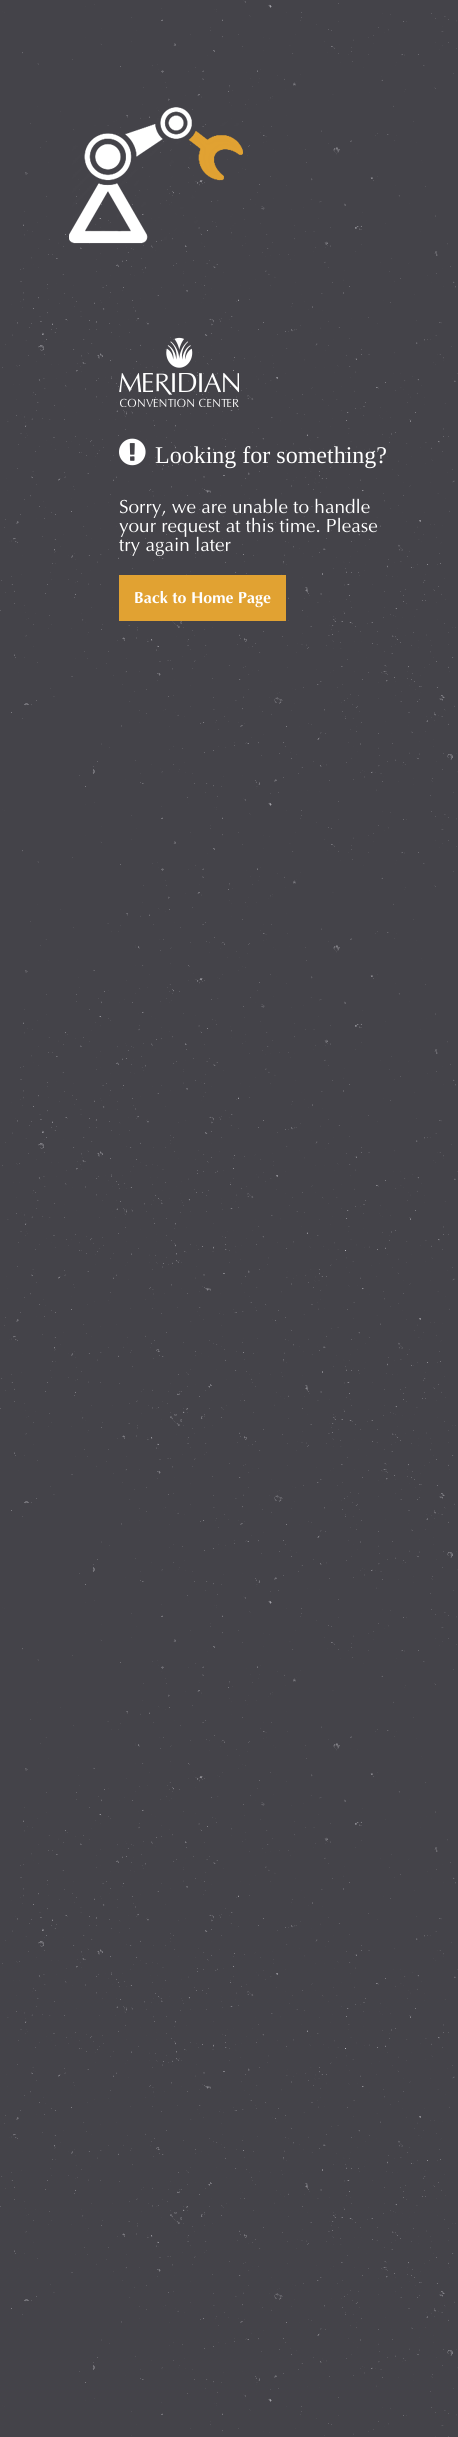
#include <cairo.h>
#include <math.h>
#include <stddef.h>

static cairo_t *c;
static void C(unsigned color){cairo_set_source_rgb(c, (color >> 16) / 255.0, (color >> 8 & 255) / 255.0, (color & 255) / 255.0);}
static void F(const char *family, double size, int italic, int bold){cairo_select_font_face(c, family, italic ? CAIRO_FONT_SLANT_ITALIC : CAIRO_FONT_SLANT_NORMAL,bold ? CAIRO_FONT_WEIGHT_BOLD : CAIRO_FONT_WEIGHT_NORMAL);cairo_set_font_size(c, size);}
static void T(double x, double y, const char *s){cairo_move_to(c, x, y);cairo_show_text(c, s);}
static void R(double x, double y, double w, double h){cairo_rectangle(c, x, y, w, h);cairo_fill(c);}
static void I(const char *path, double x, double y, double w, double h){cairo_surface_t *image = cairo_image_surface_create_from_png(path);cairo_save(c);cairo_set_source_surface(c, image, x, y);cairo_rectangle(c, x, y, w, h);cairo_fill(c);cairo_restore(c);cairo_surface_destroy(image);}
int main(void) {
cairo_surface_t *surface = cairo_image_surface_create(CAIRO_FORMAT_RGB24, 458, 2437);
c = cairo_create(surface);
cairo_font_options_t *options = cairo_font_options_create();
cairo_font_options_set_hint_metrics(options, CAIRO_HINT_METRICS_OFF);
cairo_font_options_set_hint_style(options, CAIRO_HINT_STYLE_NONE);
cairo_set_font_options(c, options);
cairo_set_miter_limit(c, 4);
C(0xffffff);
cairo_paint(c);
I("1.png",0,0,458,2437);
I("2.png",69,107,174,137);
I("3.png",119,337,120,70);
I("4.png",119,438,27,28);
F("Liberation Serif",24,0,0);
C(0xffffff);
T(155,463,"Looking for something?");
F("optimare",19,0,0);
T(119,513,"Sorry, we are unable to handle");
T(119,532,"your request at this time. Please");
T(119,551,"try again later");
C(0xe1a232);
R(119,575,167,46);
F("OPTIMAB",16,0,1);
C(0xffffff);
T(134,603,"Back to Home Page");
cairo_surface_write_to_png(surface, "o.png");
cairo_font_options_destroy(options);
cairo_destroy(c);
cairo_surface_destroy(surface);
return 0;
}
